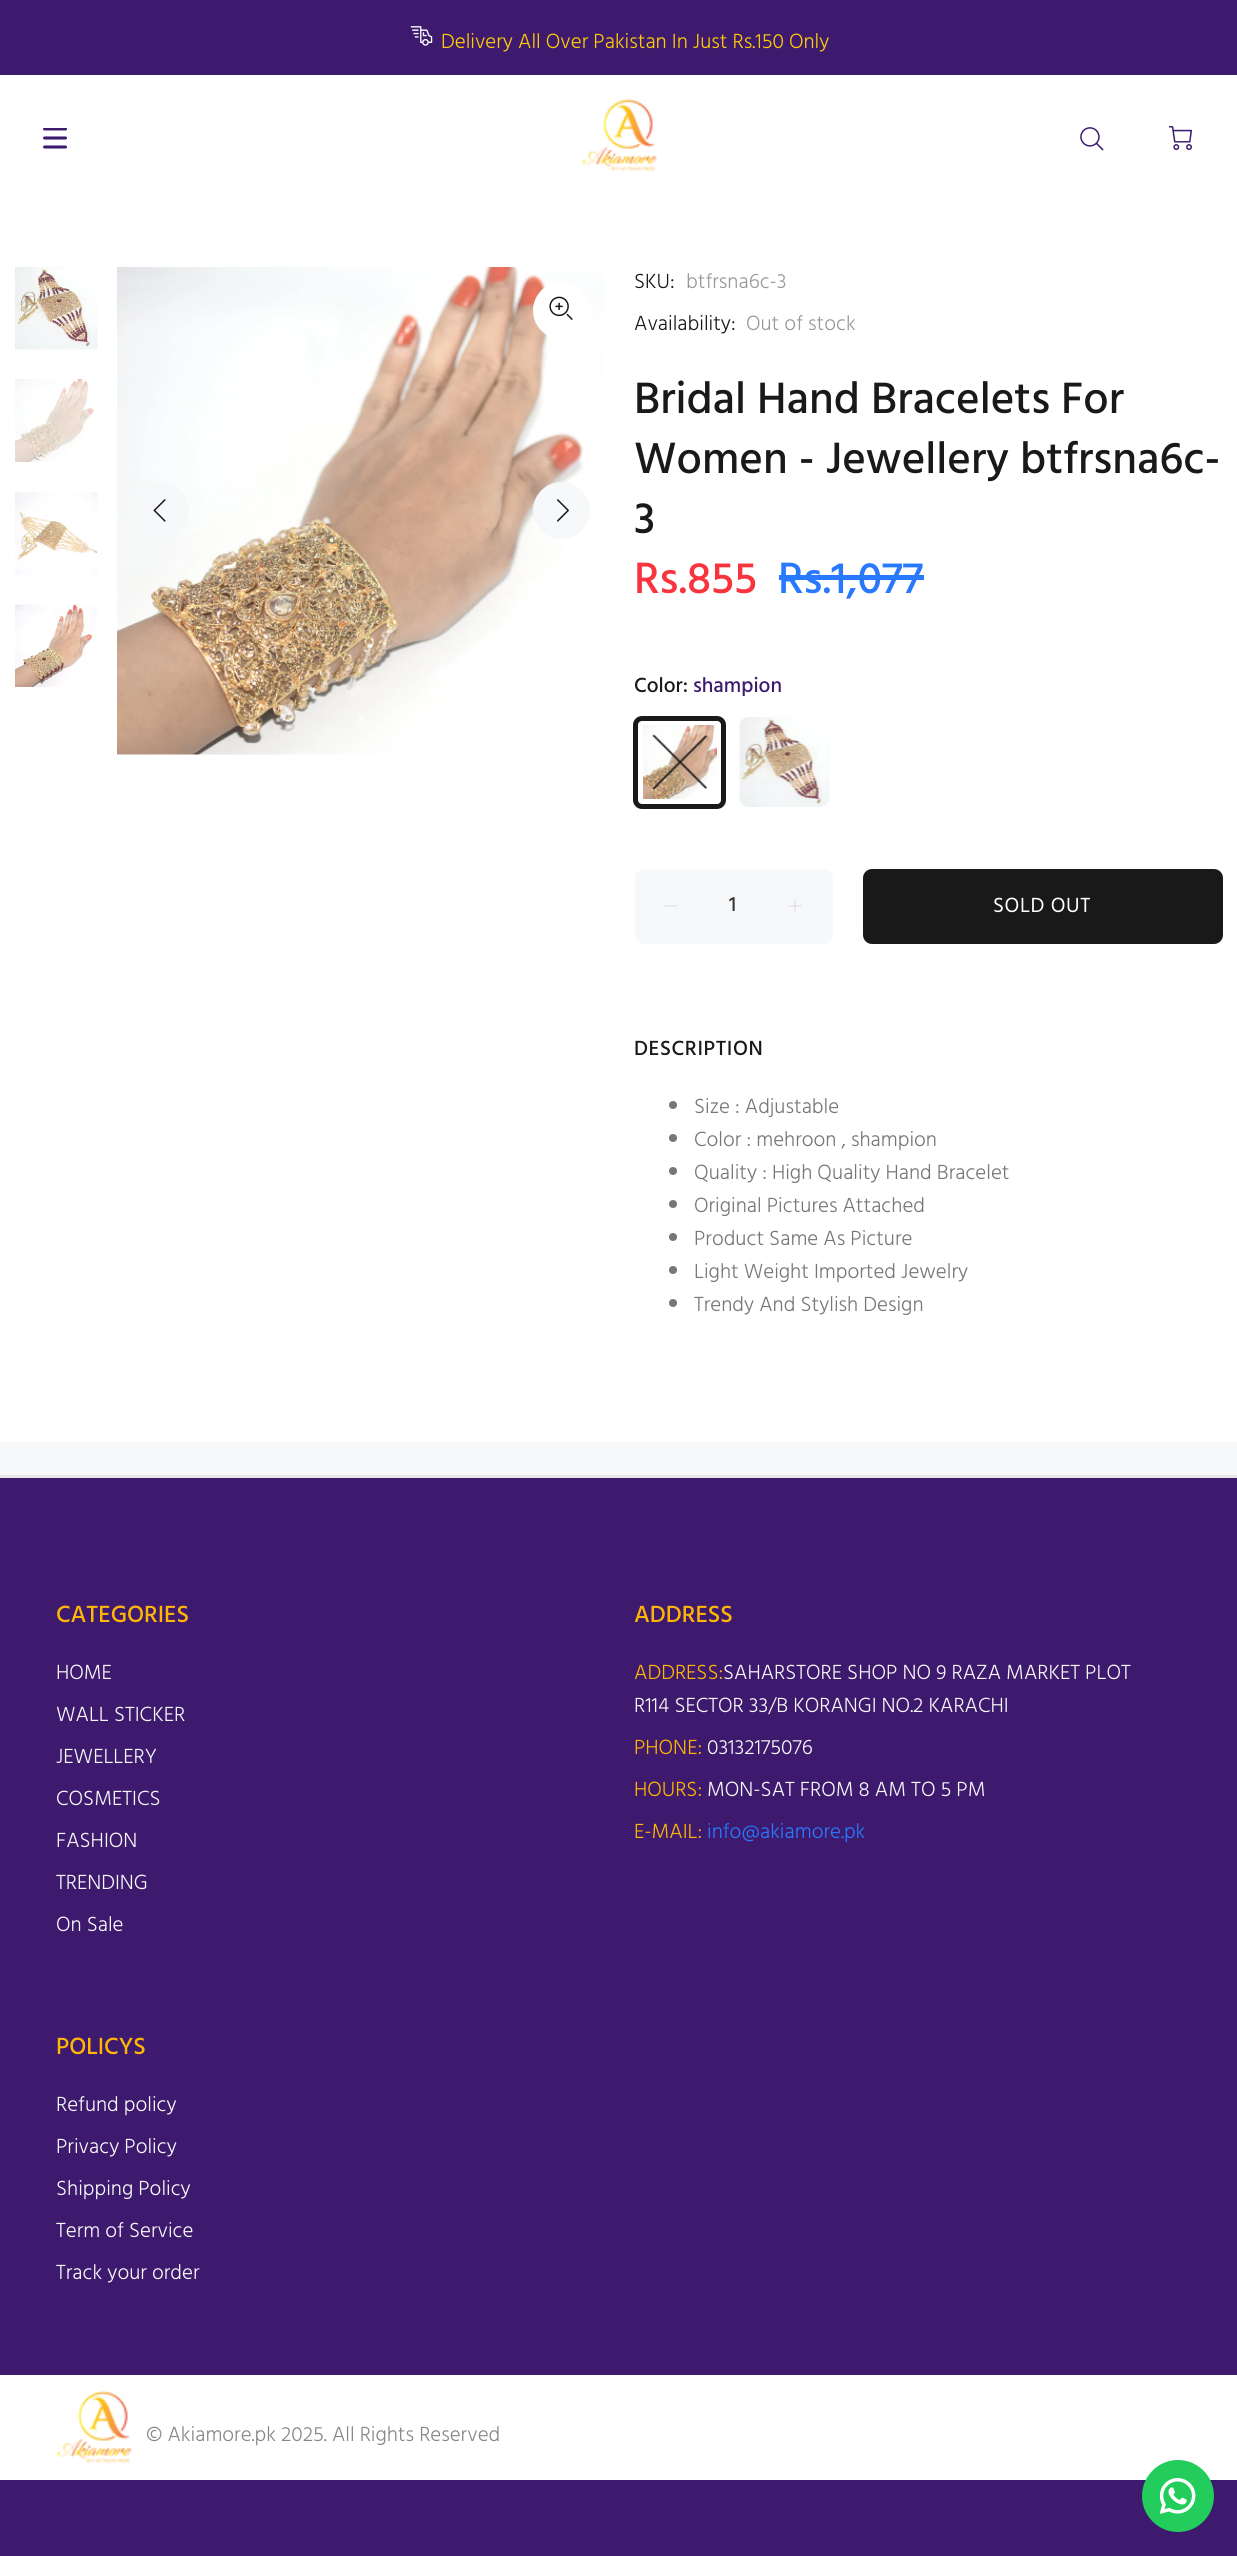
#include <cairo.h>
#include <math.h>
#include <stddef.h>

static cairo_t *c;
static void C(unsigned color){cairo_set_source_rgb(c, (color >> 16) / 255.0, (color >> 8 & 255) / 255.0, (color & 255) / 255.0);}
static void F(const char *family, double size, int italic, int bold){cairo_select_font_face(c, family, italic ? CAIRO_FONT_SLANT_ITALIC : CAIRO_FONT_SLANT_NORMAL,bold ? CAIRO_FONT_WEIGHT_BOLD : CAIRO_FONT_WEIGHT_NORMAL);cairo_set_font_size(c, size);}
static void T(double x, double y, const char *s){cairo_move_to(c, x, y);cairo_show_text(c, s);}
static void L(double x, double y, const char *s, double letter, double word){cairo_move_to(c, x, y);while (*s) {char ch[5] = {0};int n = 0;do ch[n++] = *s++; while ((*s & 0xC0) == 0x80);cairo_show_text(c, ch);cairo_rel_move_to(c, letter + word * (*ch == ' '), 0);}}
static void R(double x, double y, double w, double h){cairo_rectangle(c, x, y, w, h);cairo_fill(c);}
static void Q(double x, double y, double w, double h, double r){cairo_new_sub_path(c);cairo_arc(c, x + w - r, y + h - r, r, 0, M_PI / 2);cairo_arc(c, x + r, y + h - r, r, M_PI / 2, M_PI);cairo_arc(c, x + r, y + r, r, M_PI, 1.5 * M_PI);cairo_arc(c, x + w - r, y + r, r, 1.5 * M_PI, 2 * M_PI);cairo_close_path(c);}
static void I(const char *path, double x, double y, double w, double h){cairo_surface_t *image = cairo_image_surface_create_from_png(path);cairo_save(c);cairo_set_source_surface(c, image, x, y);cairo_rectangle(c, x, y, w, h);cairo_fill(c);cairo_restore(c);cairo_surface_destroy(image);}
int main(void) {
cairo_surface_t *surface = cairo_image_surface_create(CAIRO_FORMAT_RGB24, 1237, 2556);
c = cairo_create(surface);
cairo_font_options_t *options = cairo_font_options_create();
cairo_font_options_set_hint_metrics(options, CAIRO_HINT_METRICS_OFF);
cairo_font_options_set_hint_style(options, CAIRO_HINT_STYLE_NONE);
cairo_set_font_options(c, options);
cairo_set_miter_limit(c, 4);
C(0xffffff);
cairo_paint(c);
C(0x3d1a6e);
R(0,0,1237,75);
I("1.png",410,26,23,20);
F("Hind Light",21,0,0);
C(0xffcb08);
T(441,48,"Delivery All Over Pakistan In Just Rs.150 Only");
I("2.png",43,128,24,21);
I("3.png",582,98,75,74);
I("4.png",1080,127,24,24);
I("5.png",1168,126,24,24);
I("6.png",15,267,83,83);
I("7.png",15,379,82,83);
I("8.png",15,492,83,83);
I("9.png",15,604,82,83);
I("10.png",117,267,487,488);
C(0xffffff);
cairo_arc(c,561.5,310.5,28.5,0,2 * M_PI);
cairo_fill(c);
I("11.png",549,296,24,24);
C(0xf7f8fa);
cairo_arc(c,160.5,510.5,28.5,0,2 * M_PI);
cairo_fill(c);
I("12.png",153,499,13,23);
cairo_arc(c,561.5,510.5,28.5,0,2 * M_PI);
cairo_fill(c);
I("13.png",557,499,12,23);
C(0x191919);
T(634,288,"SKU:");
C(0x999999);
T(686,288,"btfrsna6c-3");
C(0x191919);
T(634,330,"Availability:");
C(0x999999);
T(746,330,"Out of stock");
F("Hind Medium",45,0,0);
C(0x191919);
T(634,413,"Bridal Hand Bracelets For");
T(634,473,"Women - Jewellery btfrsna6c-");
T(634,533,"3");
C(0xf8353e);
T(634,593,"Rs.855");
C(0x2879fe);
T(778,593,"Rs.1,077");
R(779,575,145,5);
F("Hind Medium",21,0,0);
C(0x191919);
T(634,692,"Color:");
C(0x3d1a6e);
T(693,692,"shampion");
I("14.png",643,725,74,74);
Q(639,721,82,82,5);
C(0xffffff);
cairo_set_line_width(c,8);
cairo_stroke(c);
Q(635.5,718.5,88,88,6.5);
C(0x191919);
cairo_set_line_width(c,5);
cairo_stroke(c);
I("15.png",652,734,56,56);
I("16.png",739,717,91,90);
C(0xf7f8fa);
Q(635,869,198,75,9);
cairo_fill(c);
I("17.png",664,905,14,2);
C(0x333333);
T(729,911,"1");
I("18.png",788,899,14,14);
C(0x191919);
Q(863,869,360,75,9);
cairo_fill(c);
F("Hind",21,0,0);
C(0xffffff);
L(993,912,"SOLD OUT",.6,0);
F("Hind Medium",21,0,0);
C(0x191919);
L(634,1055,"DESCRIPTION",.6,0);
C(0x777777);
cairo_new_path(c);
cairo_arc(c,673,1105,4,0,2 * M_PI);
cairo_fill(c);
F("Hind Light",21,0,0);
T(694,1113,"Size : Adjustable");
cairo_new_path(c);
cairo_arc(c,673,1138,4,0,2 * M_PI);
cairo_fill(c);
T(694,1146,"Color : mehroon , shampion");
cairo_new_path(c);
cairo_arc(c,673,1171,4,0,2 * M_PI);
cairo_fill(c);
T(694,1179,"Quality : High Quality Hand Bracelet");
cairo_new_path(c);
cairo_arc(c,673,1204,4,0,2 * M_PI);
cairo_fill(c);
T(694,1212,"Original Pictures Attached");
cairo_new_path(c);
cairo_arc(c,673,1237,4,0,2 * M_PI);
cairo_fill(c);
T(694,1245,"Product Same As Picture");
cairo_new_path(c);
cairo_arc(c,673,1270,4,0,2 * M_PI);
cairo_fill(c);
T(694,1278,"Light Weight Imported Jewelry");
cairo_new_path(c);
cairo_arc(c,673,1303,4,0,2 * M_PI);
cairo_fill(c);
T(694,1311,"Trendy And Stylish Design");
C(0xf7f8fa);
R(0,1442,1237,33);
C(0x3d1a6e);
R(0,1478,1237,1078);
C(0xe9e7e7);
R(0,1475,1237,3);
F("Hind Medium",24,0,0);
C(0xffb503);
T(56,1622,"CATEGORIES");
F("Hind Light",21,0,0);
C(0xf9f9f9);
T(56,1679,"HOME");
T(56,1721,"WALL STICKER");
T(56,1763,"JEWELLERY");
T(56,1805,"COSMETICS");
T(56,1847,"FASHION");
T(56,1889,"TRENDING");
T(56,1931,"On Sale");
F("Hind Medium",24,0,0);
C(0xffb503);
T(634,1622,"ADDRESS");
F("Hind Light",21,0,0);
T(634,1679,"ADDRESS:");
C(0xf9f9f9);
T(723,1679,"SAHARSTORE SHOP NO 9 RAZA MARKET PLOT");
T(634,1712,"R114 SECTOR 33/B KORANGI NO.2 KARACHI");
C(0xffb503);
T(634,1754,"PHONE:");
C(0xf9f9f9);
T(707,1754,"03132175076");
C(0xffb503);
T(634,1796,"HOURS:");
C(0xf9f9f9);
T(707,1796,"MON-SAT FROM 8 AM TO 5 PM");
C(0xffb503);
T(634,1838,"E-MAIL:");
C(0x2879fe);
T(707,1838,"info@akiamore.pk");
F("Hind Medium",24,0,0);
C(0xffb503);
T(56,2054,"POLICYS");
F("Hind Light",21,0,0);
C(0xf9f9f9);
T(56,2111,"Refund policy");
T(56,2153,"Privacy Policy");
T(56,2195,"Shipping Policy");
T(56,2237,"Term of Service");
T(56,2279,"Track your order");
C(0xffffff);
R(0,2375,1237,105);
I("19.png",57,2390,75,74);
C(0x888888);
T(146,2441,"© Akiamore.pk 2025. All Rights Reserved");
C(0x22cd5b);
cairo_new_path(c);
cairo_arc(c,1178,2496,36,0,2 * M_PI);
cairo_fill(c);
I("20.png",1160,2478,36,36);
cairo_surface_write_to_png(surface, "o.png");
cairo_font_options_destroy(options);
cairo_destroy(c);
cairo_surface_destroy(surface);
return 0;
}
